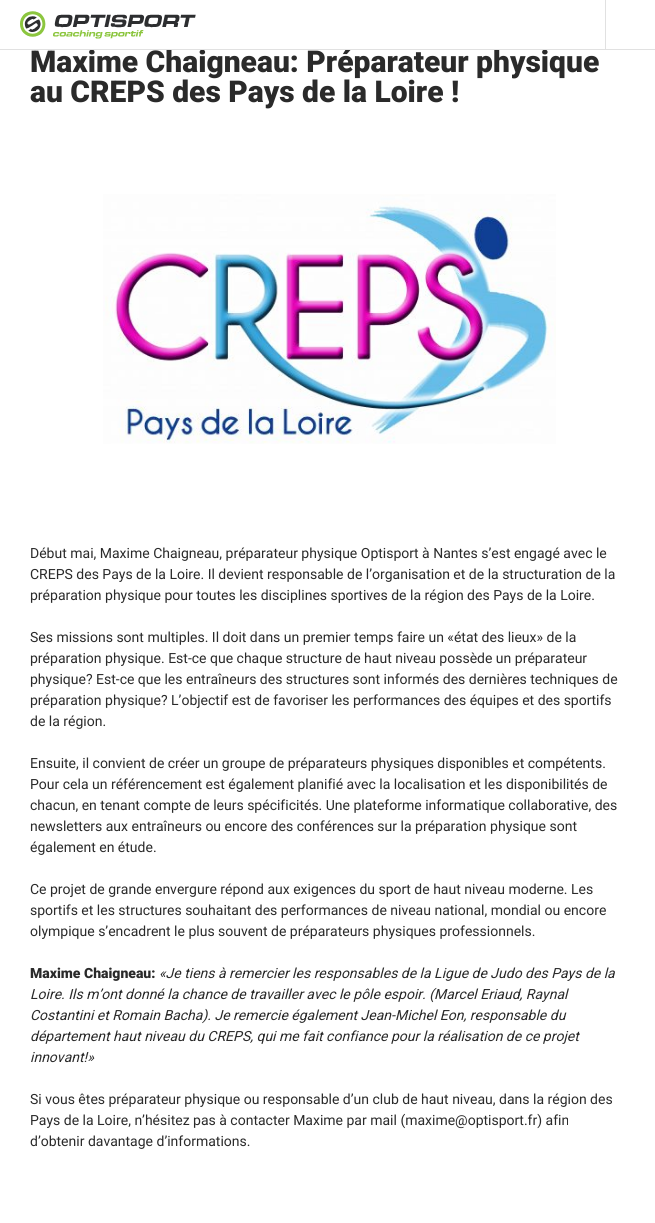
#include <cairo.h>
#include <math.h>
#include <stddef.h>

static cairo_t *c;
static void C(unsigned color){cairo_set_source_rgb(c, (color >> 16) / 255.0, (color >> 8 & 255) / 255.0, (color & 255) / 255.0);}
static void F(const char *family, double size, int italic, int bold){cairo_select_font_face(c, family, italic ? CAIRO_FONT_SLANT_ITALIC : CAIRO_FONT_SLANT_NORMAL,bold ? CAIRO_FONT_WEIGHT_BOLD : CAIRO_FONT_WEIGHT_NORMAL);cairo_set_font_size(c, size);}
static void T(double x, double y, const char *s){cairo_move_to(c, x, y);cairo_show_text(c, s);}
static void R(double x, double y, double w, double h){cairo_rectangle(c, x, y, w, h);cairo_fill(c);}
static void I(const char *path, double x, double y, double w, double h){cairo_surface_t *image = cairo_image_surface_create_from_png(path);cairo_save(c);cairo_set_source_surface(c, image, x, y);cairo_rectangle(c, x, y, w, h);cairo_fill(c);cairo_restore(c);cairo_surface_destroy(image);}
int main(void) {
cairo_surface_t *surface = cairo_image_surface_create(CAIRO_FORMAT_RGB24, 655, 1223);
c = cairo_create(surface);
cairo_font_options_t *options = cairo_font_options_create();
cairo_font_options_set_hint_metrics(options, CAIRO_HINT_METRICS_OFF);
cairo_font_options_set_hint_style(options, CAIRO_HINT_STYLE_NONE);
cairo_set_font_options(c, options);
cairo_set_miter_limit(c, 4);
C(0xffffff);
cairo_paint(c);
F("Roboto Black",30,0,0);
C(0x2a2a2a);
T(30,72,"Maxime Chaigneau: Préparateur physique");
C(0xe1e1e1);
R(0,49,655,1);
R(605,0,1,50);
I("1.png",20,11,176,28);
C(0x2a2a2a);
T(30,102,"au CREPS des Pays de la Loire !");
I("2.png",103,194,453,250);
F("Roboto",14,0,0);
T(30,558,"Début mai, Maxime Chaigneau, préparateur physique Optisport à Nantes s’est engagé avec le");
T(30,579,"CREPS des Pays de la Loire. Il devient responsable de l’organisation et de la structuration de la");
T(30,600,"préparation physique pour toutes les disciplines sportives de la région des Pays de la Loire.");
T(30,642,"Ses missions sont multiples. Il doit dans un premier temps faire un «état des lieux» de la");
T(30,663,"préparation physique. Est-ce que chaque structure de haut niveau possède un préparateur");
T(30,684,"physique? Est-ce que les entraîneurs des structures sont informés des dernières techniques de");
T(30,705,"préparation physique? L’objectif est de favoriser les performances des équipes et des sportifs");
T(30,726,"de la région.");
T(30,768,"Ensuite, il convient de créer un groupe de préparateurs physiques disponibles et compétents.");
T(30,789,"Pour cela un référencement est également planifié avec la localisation et les disponibilités de");
T(30,810,"chacun, en tenant compte de leurs spécificités. Une plateforme informatique collaborative, des");
T(30,831,"newsletters aux entraîneurs ou encore des conférences sur la préparation physique sont");
T(30,852,"également en étude.");
T(30,894,"Ce projet de grande envergure répond aux exigences du sport de haut niveau moderne. Les");
T(30,915,"sportifs et les structures souhaitant des performances de niveau national, mondial ou encore");
T(30,936,"olympique s’encadrent le plus souvent de préparateurs physiques professionnels.");
F("Roboto Black",14,0,0);
T(30,978,"Maxime Chaigneau:");
F("Roboto",14,1,0);
T(159,978,"«Je tiens à remercier les responsables de la Ligue de Judo des Pays de la");
T(30,999,"Loire. Ils m’ont donné la chance de travailler avec le pôle espoir. (Marcel Eriaud, Raynal");
T(30,1020,"Costantini et Romain Bacha). Je remercie également Jean-Michel Eon, responsable du");
T(30,1041,"département haut niveau du CREPS, qui me fait confiance pour la réalisation de ce projet");
T(30,1062,"innovant!»");
F("Roboto",14,0,0);
T(30,1104,"Si vous êtes préparateur physique ou responsable d’un club de haut niveau, dans la région des");
T(30,1125,"Pays de la Loire, n’hésitez pas à contacter Maxime par mail (maxime@optisport.fr) afin");
T(30,1146,"d’obtenir davantage d’informations.");
cairo_surface_write_to_png(surface, "o.png");
cairo_font_options_destroy(options);
cairo_destroy(c);
cairo_surface_destroy(surface);
return 0;
}
